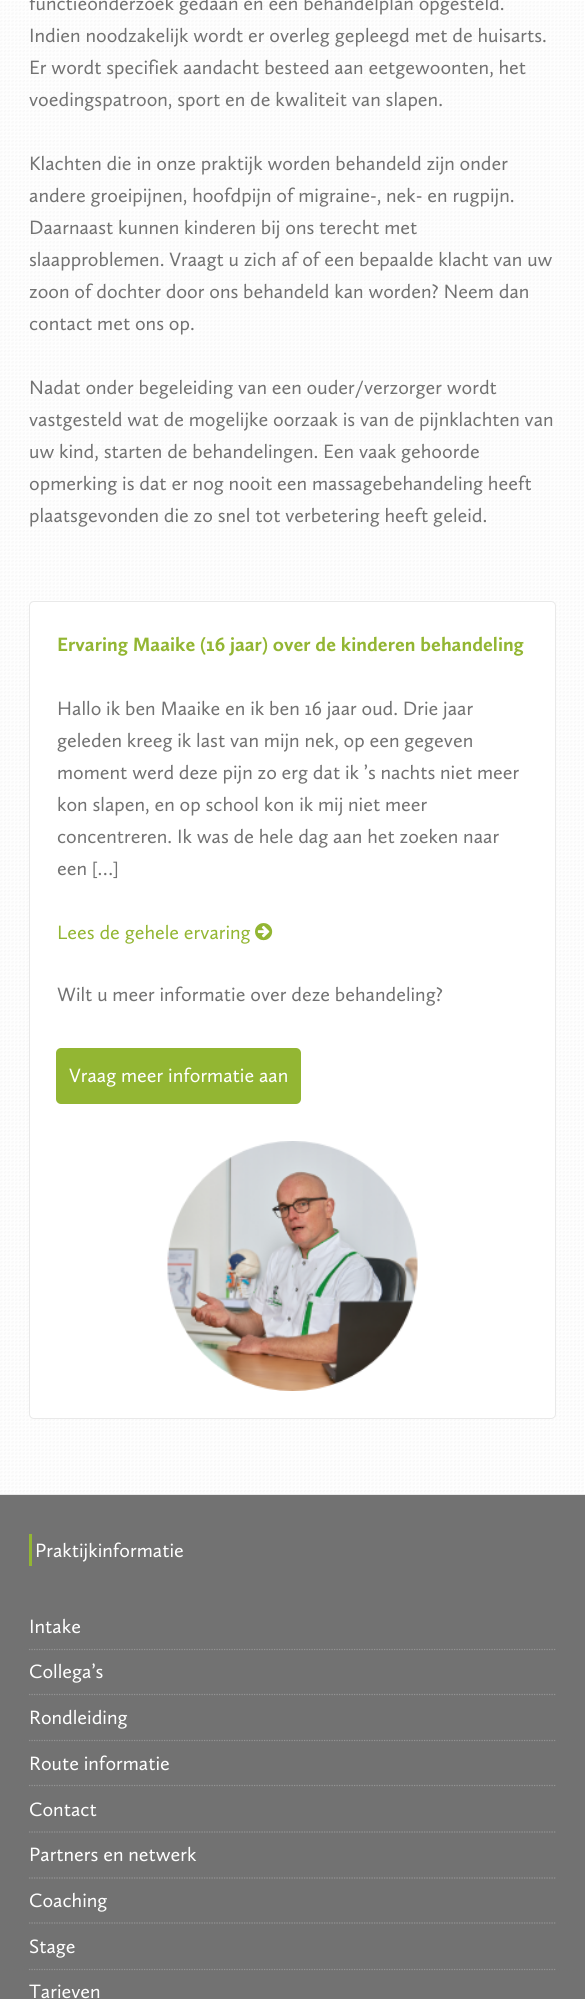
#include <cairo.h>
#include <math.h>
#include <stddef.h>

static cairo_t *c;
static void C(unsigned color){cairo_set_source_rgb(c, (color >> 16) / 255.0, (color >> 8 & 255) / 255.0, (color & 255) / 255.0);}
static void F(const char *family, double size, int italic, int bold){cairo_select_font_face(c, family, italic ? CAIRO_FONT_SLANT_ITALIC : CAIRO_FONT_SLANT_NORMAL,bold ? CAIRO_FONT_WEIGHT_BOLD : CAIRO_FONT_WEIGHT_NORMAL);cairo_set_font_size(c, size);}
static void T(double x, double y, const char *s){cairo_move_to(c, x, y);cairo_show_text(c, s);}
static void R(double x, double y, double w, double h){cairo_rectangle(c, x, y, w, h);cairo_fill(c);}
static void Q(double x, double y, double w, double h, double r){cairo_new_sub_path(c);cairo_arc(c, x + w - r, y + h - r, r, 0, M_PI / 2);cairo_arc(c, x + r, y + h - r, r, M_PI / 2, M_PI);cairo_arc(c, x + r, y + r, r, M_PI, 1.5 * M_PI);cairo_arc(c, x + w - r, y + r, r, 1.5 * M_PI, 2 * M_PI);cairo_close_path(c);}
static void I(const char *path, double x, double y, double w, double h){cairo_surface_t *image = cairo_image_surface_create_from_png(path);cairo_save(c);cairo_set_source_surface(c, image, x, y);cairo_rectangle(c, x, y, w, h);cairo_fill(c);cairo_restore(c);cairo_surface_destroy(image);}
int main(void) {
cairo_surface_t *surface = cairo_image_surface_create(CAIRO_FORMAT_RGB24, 585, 1999);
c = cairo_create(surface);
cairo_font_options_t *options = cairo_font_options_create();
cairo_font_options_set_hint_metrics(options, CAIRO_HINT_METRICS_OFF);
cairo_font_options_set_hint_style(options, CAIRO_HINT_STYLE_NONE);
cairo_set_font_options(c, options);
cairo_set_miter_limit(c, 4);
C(0xffffff);
cairo_paint(c);
I("1.png",0,1,584,1493);
C(0xe9e9e9);
R(0,1494,585,1);
F("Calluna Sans",20,0,0);
C(0x727272);
T(29,10,"functieonderzoek gedaan en een behandelplan opgesteld.");
T(29,42,"Indien noodzakelijk wordt er overleg gepleegd met de huisarts.");
T(29,74,"Er wordt specifiek aandacht besteed aan eetgewoonten, het");
T(29,106,"voedingspatroon, sport en de kwaliteit van slapen.");
T(29,170,"Klachten die in onze praktijk worden behandeld zijn onder");
T(29,202,"andere groeipijnen, hoofdpijn of migraine-, nek- en rugpijn.");
T(29,234,"Daarnaast kunnen kinderen bij ons terecht met");
T(29,266,"slaapproblemen. Vraagt u zich af of een bepaalde klacht van uw");
T(29,298,"zoon of dochter door ons behandeld kan worden? Neem dan");
T(29,330,"contact met ons op.");
T(29,394,"Nadat onder begeleiding van een ouder/verzorger wordt");
T(29,426,"vastgesteld wat de mogelijke oorzaak is van de pijnklachten van");
T(29,458,"uw kind, starten de behandelingen. Een vaak gehoorde");
T(29,490,"opmerking is dat er nog nooit een massagebehandeling heeft");
T(29,522,"plaatsgevonden die zo snel tot verbetering heeft geleid.");
C(0xffffff);
Q(29.5,601.5,526,817,4.5);
cairo_fill_preserve(c);
C(0xe9e9e9);
cairo_set_line_width(c,1);
cairo_stroke(c);
F("Calluna Sans",20,0,1);
C(0x93b633);
T(57,651,"Ervaring Maaike (16 jaar) over de kinderen behandeling");
F("Calluna Sans",20,0,0);
C(0x727272);
T(57,715,"Hallo ik ben Maaike en ik ben 16 jaar oud. Drie jaar");
T(57,747,"geleden kreeg ik last van mijn nek, op een gegeven");
T(57,779,"moment werd deze pijn zo erg dat ik ’s nachts niet meer");
T(57,811,"kon slapen, en op school kon ik mij niet meer");
T(57,843,"concentreren. Ik was de hele dag aan het zoeken naar");
T(57,875,"een […]");
C(0x93b633);
T(57,939,"Lees de gehele ervaring");
I("2.png",255,923,18,18);
C(0x727272);
T(57,1001,"Wilt u meer informatie over deze behandeling?");
C(0x93b633);
Q(56,1048,245,56,5);
cairo_fill(c);
C(0xffffff);
T(69,1082,"Vraag meer informatie aan");
I("3.png",167,1141,251,250);
C(0x727272);
R(0,1495,585,504);
C(0x93b633);
R(29,1534,3,32);
C(0xffffff);
T(35,1557,"Praktijkinformatie");
cairo_new_path(c);
cairo_move_to(c,29,1649.5);
cairo_line_to(c,556,1649.5);
C(0x949494);
cairo_set_line_width(c,1.2);
cairo_set_dash(c,(double[]){1.25,1.25},2,0);
cairo_stroke(c);
C(0xffffff);
T(29,1633,"Intake");
cairo_new_path(c);
cairo_move_to(c,29,1694.5);
cairo_line_to(c,556,1694.5);
C(0x949494);
cairo_stroke(c);
C(0xffffff);
T(29,1678,"Collega’s");
cairo_new_path(c);
cairo_move_to(c,29,1740.5);
cairo_line_to(c,556,1740.5);
C(0x949494);
cairo_stroke(c);
C(0xffffff);
T(29,1724,"Rondleiding");
cairo_new_path(c);
cairo_move_to(c,29,1785.5);
cairo_line_to(c,556,1785.5);
C(0x949494);
cairo_stroke(c);
C(0xffffff);
T(29,1770,"Route informatie");
cairo_new_path(c);
cairo_move_to(c,29,1832);
cairo_line_to(c,556,1832);
C(0x949494);
cairo_stroke(c);
C(0xffffff);
T(29,1816,"Contact");
cairo_new_path(c);
cairo_move_to(c,29,1878);
cairo_line_to(c,556,1878);
C(0x949494);
cairo_stroke(c);
C(0xffffff);
T(29,1861,"Partners en netwerk");
cairo_new_path(c);
cairo_move_to(c,29,1923);
cairo_line_to(c,556,1923);
C(0x949494);
cairo_stroke(c);
C(0xffffff);
T(29,1907,"Coaching");
cairo_new_path(c);
cairo_move_to(c,29,1969.5);
cairo_line_to(c,556,1969.5);
C(0x949494);
cairo_stroke(c);
C(0xffffff);
T(29,1953,"Stage");
T(29,1998,"Tarieven");
cairo_surface_write_to_png(surface, "o.png");
cairo_font_options_destroy(options);
cairo_destroy(c);
cairo_surface_destroy(surface);
return 0;
}
